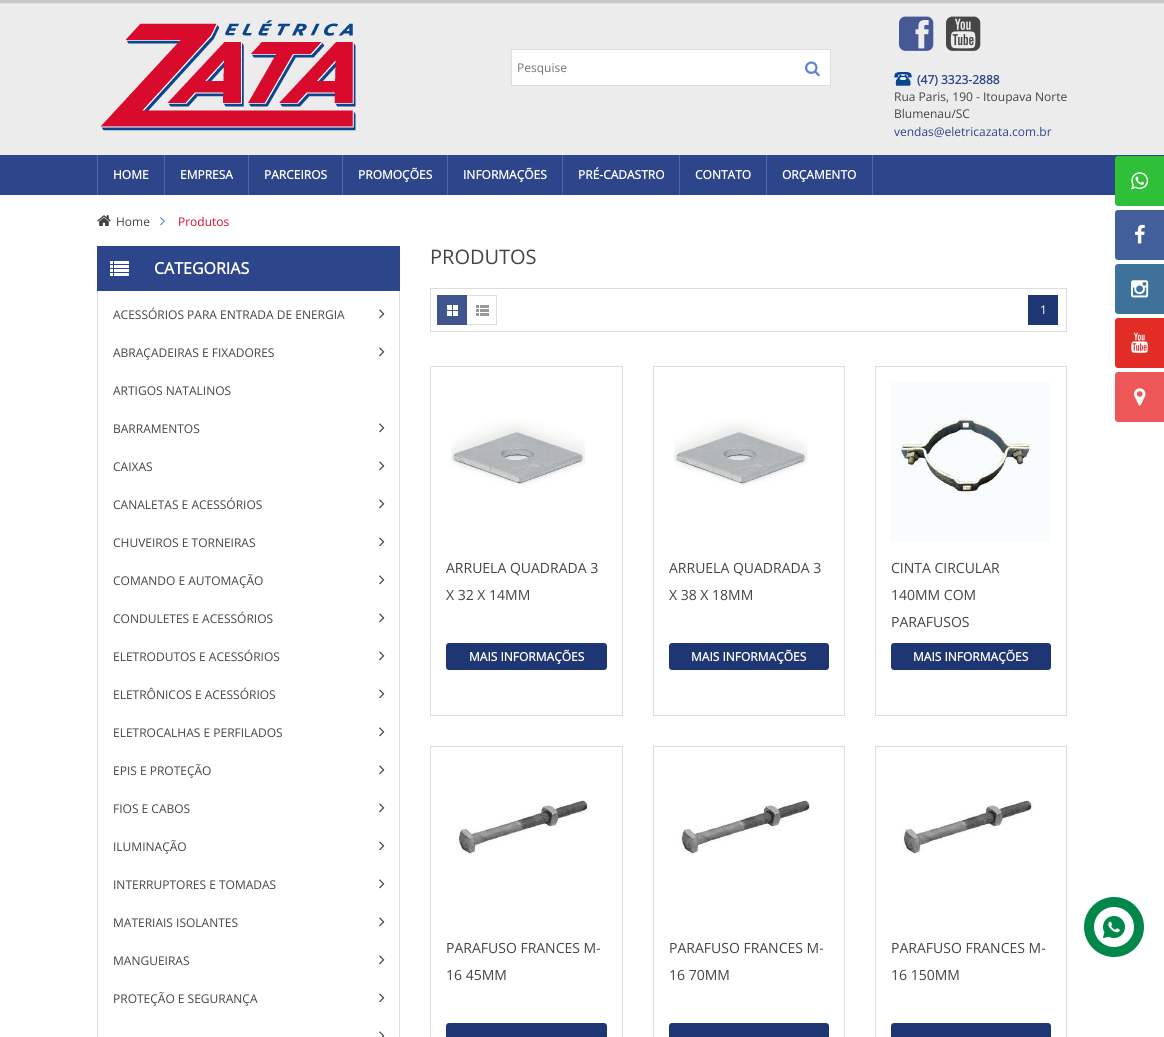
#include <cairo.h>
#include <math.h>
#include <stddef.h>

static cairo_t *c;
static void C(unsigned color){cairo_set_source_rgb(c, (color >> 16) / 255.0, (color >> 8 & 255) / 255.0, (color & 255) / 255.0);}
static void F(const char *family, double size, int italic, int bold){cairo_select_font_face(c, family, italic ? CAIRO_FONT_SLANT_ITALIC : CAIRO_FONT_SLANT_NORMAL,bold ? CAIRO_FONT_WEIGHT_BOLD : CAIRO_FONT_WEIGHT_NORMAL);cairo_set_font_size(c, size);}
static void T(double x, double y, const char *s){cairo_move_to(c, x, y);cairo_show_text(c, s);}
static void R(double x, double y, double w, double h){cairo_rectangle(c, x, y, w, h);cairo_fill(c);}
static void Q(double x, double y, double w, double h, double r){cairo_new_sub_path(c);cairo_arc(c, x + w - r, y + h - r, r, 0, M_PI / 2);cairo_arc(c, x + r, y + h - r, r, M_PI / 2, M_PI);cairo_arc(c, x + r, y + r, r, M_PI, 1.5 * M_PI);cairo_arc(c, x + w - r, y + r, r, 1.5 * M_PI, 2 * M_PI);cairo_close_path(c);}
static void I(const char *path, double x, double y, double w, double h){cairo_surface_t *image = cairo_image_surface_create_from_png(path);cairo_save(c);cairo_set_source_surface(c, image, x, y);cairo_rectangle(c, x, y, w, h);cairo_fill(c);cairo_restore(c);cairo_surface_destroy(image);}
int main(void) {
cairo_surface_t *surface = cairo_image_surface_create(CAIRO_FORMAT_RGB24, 1164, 1037);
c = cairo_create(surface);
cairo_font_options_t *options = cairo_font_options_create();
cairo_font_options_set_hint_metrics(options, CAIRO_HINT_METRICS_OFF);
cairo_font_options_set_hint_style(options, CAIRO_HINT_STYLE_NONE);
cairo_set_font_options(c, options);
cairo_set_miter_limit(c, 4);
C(0xffffff);
cairo_paint(c);
C(0xececec);
R(0,4,1164,151);
C(0xc6c6c6);
R(0,0,1164,3);
C(0xe3e3e3);
R(0,3,1164,1);
I("1.png",100,20,256,111);
cairo_rectangle(c,511.5,49.5,319,36);
C(0xdddddd);
cairo_set_line_width(c,1);
cairo_stroke(c);
C(0xffffff);
R(512,50,318,35);
F("Open Sans",12,0,0);
C(0x757575);
T(517,72,"Pesquise");
I("2.png",805,61,15,16);
I("3.png",899,16,35,35);
I("4.png",946,16,35,35);
I("5.png",894,72,18,14);
F("Open Sans",12,0,1);
C(0x2c458b);
T(917,84,"(47) 3323-2888");
F("Open Sans",12,0,0);
C(0x444444);
T(894,101,"Rua Paris, 190 - Itoupava Norte");
T(894,118,"Blumenau/SC");
C(0x2c458b);
T(894,136,"vendas@eletricazata.com.br");
R(0,155,1164,40);
C(0x4b6aa5);
R(164,155,1,40);
R(97,155,1,40);
F("Open Sans",12,0,1);
C(0xffffff);
T(113,179,"HOME");
C(0x4b6aa5);
R(248,155,1,40);
C(0xffffff);
T(180,179,"EMPRESA");
C(0x4b6aa5);
R(342,155,1,40);
C(0xffffff);
T(264,179,"PARCEIROS");
C(0x4b6aa5);
R(447,155,1,40);
C(0xffffff);
T(358,179,"PROMOÇÕES");
C(0x4b6aa5);
R(562,155,1,40);
C(0xffffff);
T(463,179,"INFORMAÇÕES");
C(0x4b6aa5);
R(679,155,1,40);
C(0xffffff);
T(578,179,"PRÉ-CADASTRO");
C(0x4b6aa5);
R(766,155,1,40);
C(0xffffff);
T(695,179,"CONTATO");
C(0x4b6aa5);
R(872,155,1,40);
C(0xffffff);
T(782,179,"ORÇAMENTO");
I("6.png",97,215,14,11);
F("Open Sans",12,0,0);
C(0x444444);
T(116,226,"Home");
I("7.png",160,217,5,9);
C(0xd90d2b);
T(178,226,"Produtos");
C(0x2c458b);
R(97,246,303,45);
I("8.png",110,261,19,15);
F("Open Sans",16,0,1);
C(0xffffff);
T(154,274,"CATEGORIAS");
C(0xdddddd);
R(399,291,1,746);
R(97,291,1,746);
F("Open Sans",12,0,0);
C(0x444444);
T(113,319,"ACESSÓRIOS PARA ENTRADA DE ENERGIA");
I("9.png",379,309,6,10);
T(113,357,"ABRAÇADEIRAS E FIXADORES");
I("9.png",379,347,6,10);
T(113,395,"ARTIGOS NATALINOS");
T(113,433,"BARRAMENTOS");
I("9.png",379,423,6,10);
T(113,471,"CAIXAS");
I("9.png",379,461,6,10);
T(113,509,"CANALETAS E ACESSÓRIOS");
I("9.png",379,499,6,10);
T(113,547,"CHUVEIROS E TORNEIRAS");
I("9.png",379,537,6,10);
T(113,585,"COMANDO E AUTOMAÇÃO");
I("9.png",379,575,6,10);
T(113,623,"CONDULETES E ACESSÓRIOS");
I("9.png",379,613,6,10);
T(113,661,"ELETRODUTOS E ACESSÓRIOS");
I("9.png",379,651,6,10);
T(113,699,"ELETRÔNICOS E ACESSÓRIOS");
I("9.png",379,689,6,10);
T(113,737,"ELETROCALHAS E PERFILADOS");
I("9.png",379,727,6,10);
T(113,775,"EPIS E PROTEÇÃO");
I("9.png",379,765,6,10);
T(113,813,"FIOS E CABOS");
I("9.png",379,803,6,10);
T(113,851,"ILUMINAÇÃO");
I("9.png",379,841,6,10);
T(113,889,"INTERRUPTORES E TOMADAS");
I("9.png",379,879,6,10);
T(113,927,"MATERIAIS ISOLANTES");
I("9.png",379,917,6,10);
T(113,965,"MANGUEIRAS");
I("9.png",379,955,6,10);
T(113,1003,"PROTEÇÃO E SEGURANÇA");
I("9.png",379,993,6,10);
I("10.png",379,1031,6,6);
F("Open Sans",20,0,0);
T(430,264,"PRODUTOS");
cairo_rectangle(c,430.5,288.5,636,43);
C(0xdddddd);
cairo_stroke(c);
I("11.png",437,295,30,30);
I("12.png",467,295,30,30);
C(0x1f3674);
R(1028,295,30,30);
F("Open Sans",12,0,0);
C(0xffffff);
T(1040,314,"1");
cairo_rectangle(c,430.5,366.5,192,349);
C(0xdddddd);
cairo_stroke(c);
I("13.png",451,420,134,66);
F("Open Sans",14,0,0);
C(0x444444);
T(446,573,"ARRUELA QUADRADA 3");
T(446,600,"X 32 X 14MM");
C(0x1f3674);
Q(446,643,161,27,3);
cairo_fill(c);
F("Open Sans",12,0,1);
C(0xffffff);
T(469,661,"MAIS INFORMAÇÕES");
cairo_rectangle(c,653.5,366.5,191,349);
C(0xdddddd);
cairo_stroke(c);
I("14.png",674,420,134,66);
F("Open Sans",14,0,0);
C(0x444444);
T(669,573,"ARRUELA QUADRADA 3");
T(669,600,"X 38 X 18MM");
C(0x1f3674);
Q(669,643,160,27,3);
cairo_fill(c);
F("Open Sans",12,0,1);
C(0xffffff);
T(691,661,"MAIS INFORMAÇÕES");
cairo_rectangle(c,875.5,366.5,191,349);
C(0xdddddd);
cairo_stroke(c);
I("15.png",891,382,160,160);
F("Open Sans",14,0,0);
C(0x444444);
T(891,573,"CINTA CIRCULAR");
T(891,600,"140MM COM");
T(891,627,"PARAFUSOS");
C(0x1f3674);
Q(891,643,160,27,3);
cairo_fill(c);
F("Open Sans",12,0,1);
C(0xffffff);
T(913,661,"MAIS INFORMAÇÕES");
cairo_rectangle(c,430.5,746.5,192,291);
C(0xdddddd);
cairo_stroke(c);
I("16.png",456,800,133,56);
F("Open Sans",14,0,0);
C(0x444444);
T(446,953,"PARAFUSO FRANCES M-");
T(446,980,"16 45MM");
C(0x1f3674);
Q(446,1023,161,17,3);
cairo_fill(c);
cairo_rectangle(c,653.5,746.5,191,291);
C(0xdddddd);
cairo_stroke(c);
I("17.png",679,800,132,56);
C(0x444444);
T(669,953,"PARAFUSO FRANCES M-");
T(669,980,"16 70MM");
C(0x1f3674);
Q(669,1023,160,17,3);
cairo_fill(c);
cairo_rectangle(c,875.5,746.5,191,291);
C(0xdddddd);
cairo_stroke(c);
I("17.png",901,800,132,56);
C(0x444444);
T(891,953,"PARAFUSO FRANCES M-");
T(891,980,"16 150MM");
C(0x1f3674);
Q(891,1023,160,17,3);
cairo_fill(c);
C(0x30bf39);
Q(1115,156,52,50,3);
cairo_fill(c);
I("18.png",1131,172,18,18);
C(0x425f9c);
Q(1115,210,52,50,3);
cairo_fill(c);
I("19.png",1135,224,10,20);
C(0x3f729b);
Q(1115,264,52,50,3);
cairo_fill(c);
I("20.png",1131,280,18,18);
C(0xe22d26);
Q(1115,318,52,50,3);
cairo_fill(c);
I("21.png",1131,332,17,21);
C(0xed5757);
Q(1115,372,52,50,3);
cairo_fill(c);
I("22.png",1134,388,12,18);
C(0x008749);
cairo_arc(c,1114,927,30,0,2 * M_PI);
cairo_fill(c);
C(0xffffff);
cairo_arc(c,1114,927,20,0,2 * M_PI);
cairo_fill(c);
I("23.png",1103,916,22,22);
cairo_surface_write_to_png(surface, "o.png");
cairo_font_options_destroy(options);
cairo_destroy(c);
cairo_surface_destroy(surface);
return 0;
}
